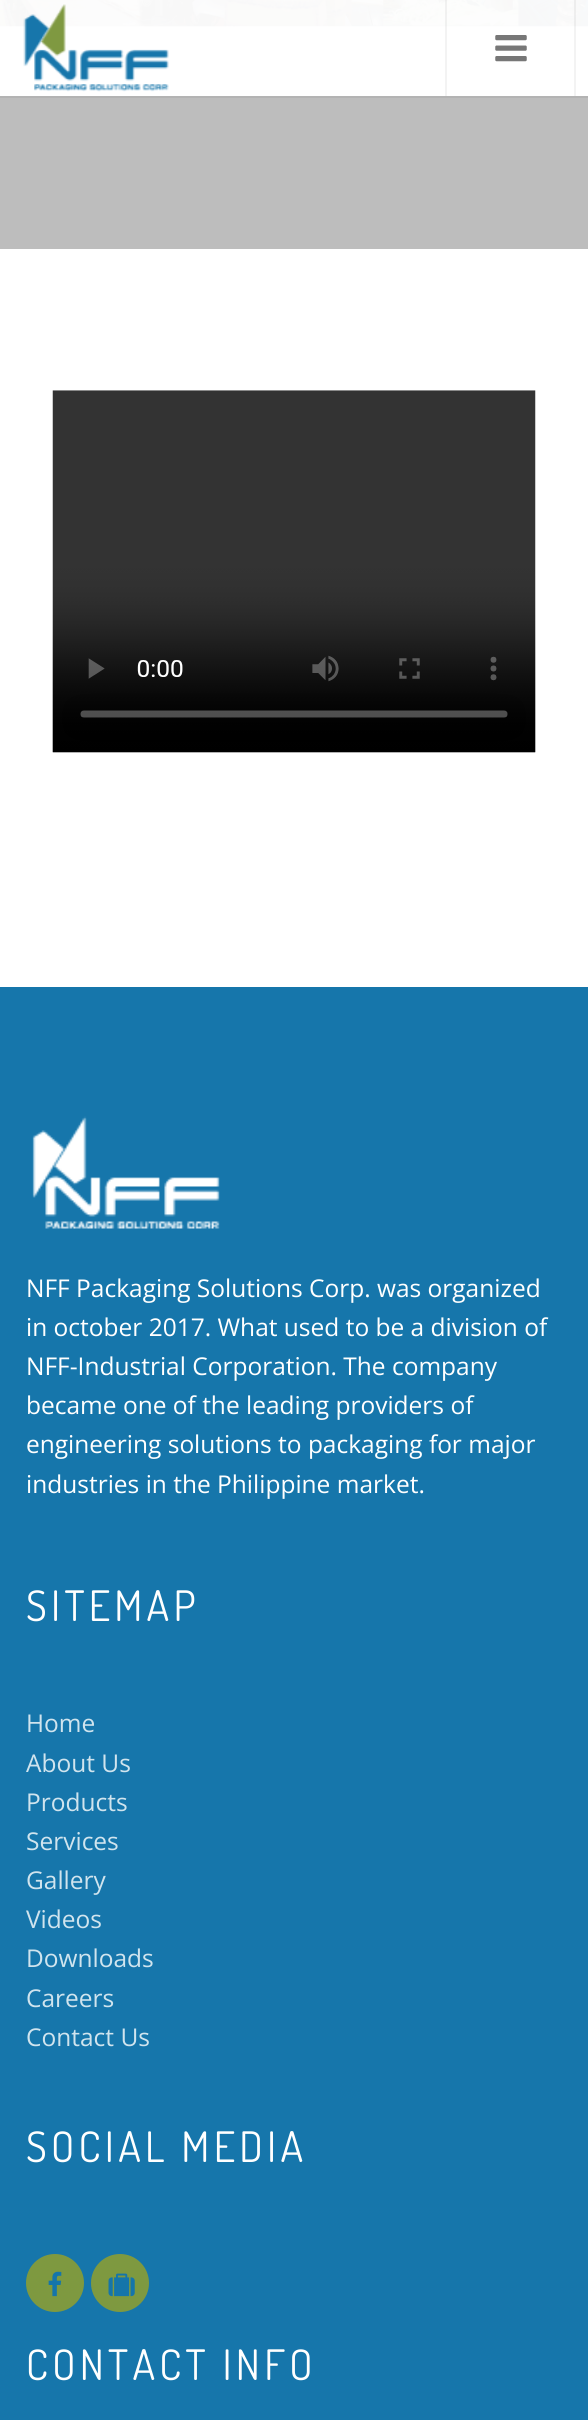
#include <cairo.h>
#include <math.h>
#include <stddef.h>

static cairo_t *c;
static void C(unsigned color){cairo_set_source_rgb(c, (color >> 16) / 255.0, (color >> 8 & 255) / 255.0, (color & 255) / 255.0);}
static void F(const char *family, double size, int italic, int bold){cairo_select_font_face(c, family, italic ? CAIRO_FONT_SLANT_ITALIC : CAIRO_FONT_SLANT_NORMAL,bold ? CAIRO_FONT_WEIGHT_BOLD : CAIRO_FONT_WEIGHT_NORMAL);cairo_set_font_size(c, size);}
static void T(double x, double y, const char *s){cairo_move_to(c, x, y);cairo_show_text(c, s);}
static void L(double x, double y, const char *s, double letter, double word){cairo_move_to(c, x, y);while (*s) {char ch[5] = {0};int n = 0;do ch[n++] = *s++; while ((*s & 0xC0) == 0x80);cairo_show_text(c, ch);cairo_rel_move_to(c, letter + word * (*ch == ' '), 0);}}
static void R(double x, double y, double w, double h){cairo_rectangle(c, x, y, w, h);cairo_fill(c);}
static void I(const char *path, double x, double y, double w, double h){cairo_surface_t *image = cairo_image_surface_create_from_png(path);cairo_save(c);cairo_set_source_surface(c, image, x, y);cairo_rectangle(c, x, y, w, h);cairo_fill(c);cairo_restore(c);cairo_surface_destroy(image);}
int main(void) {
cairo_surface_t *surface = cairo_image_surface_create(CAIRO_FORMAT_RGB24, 588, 2420);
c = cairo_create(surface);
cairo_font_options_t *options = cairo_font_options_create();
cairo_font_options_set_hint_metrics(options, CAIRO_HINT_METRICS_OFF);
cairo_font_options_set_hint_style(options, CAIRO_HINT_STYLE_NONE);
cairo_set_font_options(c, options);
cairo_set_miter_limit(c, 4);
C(0xffffff);
cairo_paint(c);
C(0xbdbdbd);
R(0,98,588,151);
I("1.png",0,0,588,27);
C(0xb3b3b3);
R(0,96,588,2);
I("2.png",23,4,146,88);
cairo_set_source_rgba(c,0,0,0,0.05);
R(574,0,2,96);
R(445,0,2,96);
I("3.png",495,35,32,27);
I("4.png",52,390,484,363);
C(0x1676ab);
R(0,987,588,1433);
I("5.png",32,1116,188,113);
F("Open Sans",24.5,0,0);
C(0xffffff);
T(26,1297,"NFF Packaging Solutions Corp. was organized");
T(26,1336,"in october 2017. What used to be a division of");
T(26,1375,"NFF-Industrial Corporation. The company");
T(26,1414,"became one of the leading providers of");
T(26,1453,"engineering solutions to packaging for major");
T(26,1493,"industries in the Philippine market.");
F("Dosis",42,0,0);
L(26,1621,"SITEMAP",4.25,0);
F("Open Sans",24.5,0,0);
C(0xd0e4ee);
T(26,1732,"Home");
T(26,1772,"About Us");
T(26,1811,"Products");
T(26,1850,"Services");
T(26,1889,"Gallery");
T(26,1928,"Videos");
T(26,1967,"Downloads");
T(26,2007,"Careers");
T(26,2046,"Contact Us");
F("Dosis",42,0,0);
C(0xffffff);
L(26,2162,"SOCIAL MEDIA",4.25,0);
C(0x7e9940);
cairo_new_path(c);
cairo_arc(c,55,2283,29,0,2 * M_PI);
cairo_fill(c);
I("6.png",48,2271,14,26);
cairo_arc(c,120,2283,29,0,2 * M_PI);
cairo_fill(c);
I("7.png",108,2273,27,24);
C(0xffffff);
L(26,2380,"CONTACT INFO",4.25,0);
cairo_surface_write_to_png(surface, "o.png");
cairo_font_options_destroy(options);
cairo_destroy(c);
cairo_surface_destroy(surface);
return 0;
}
